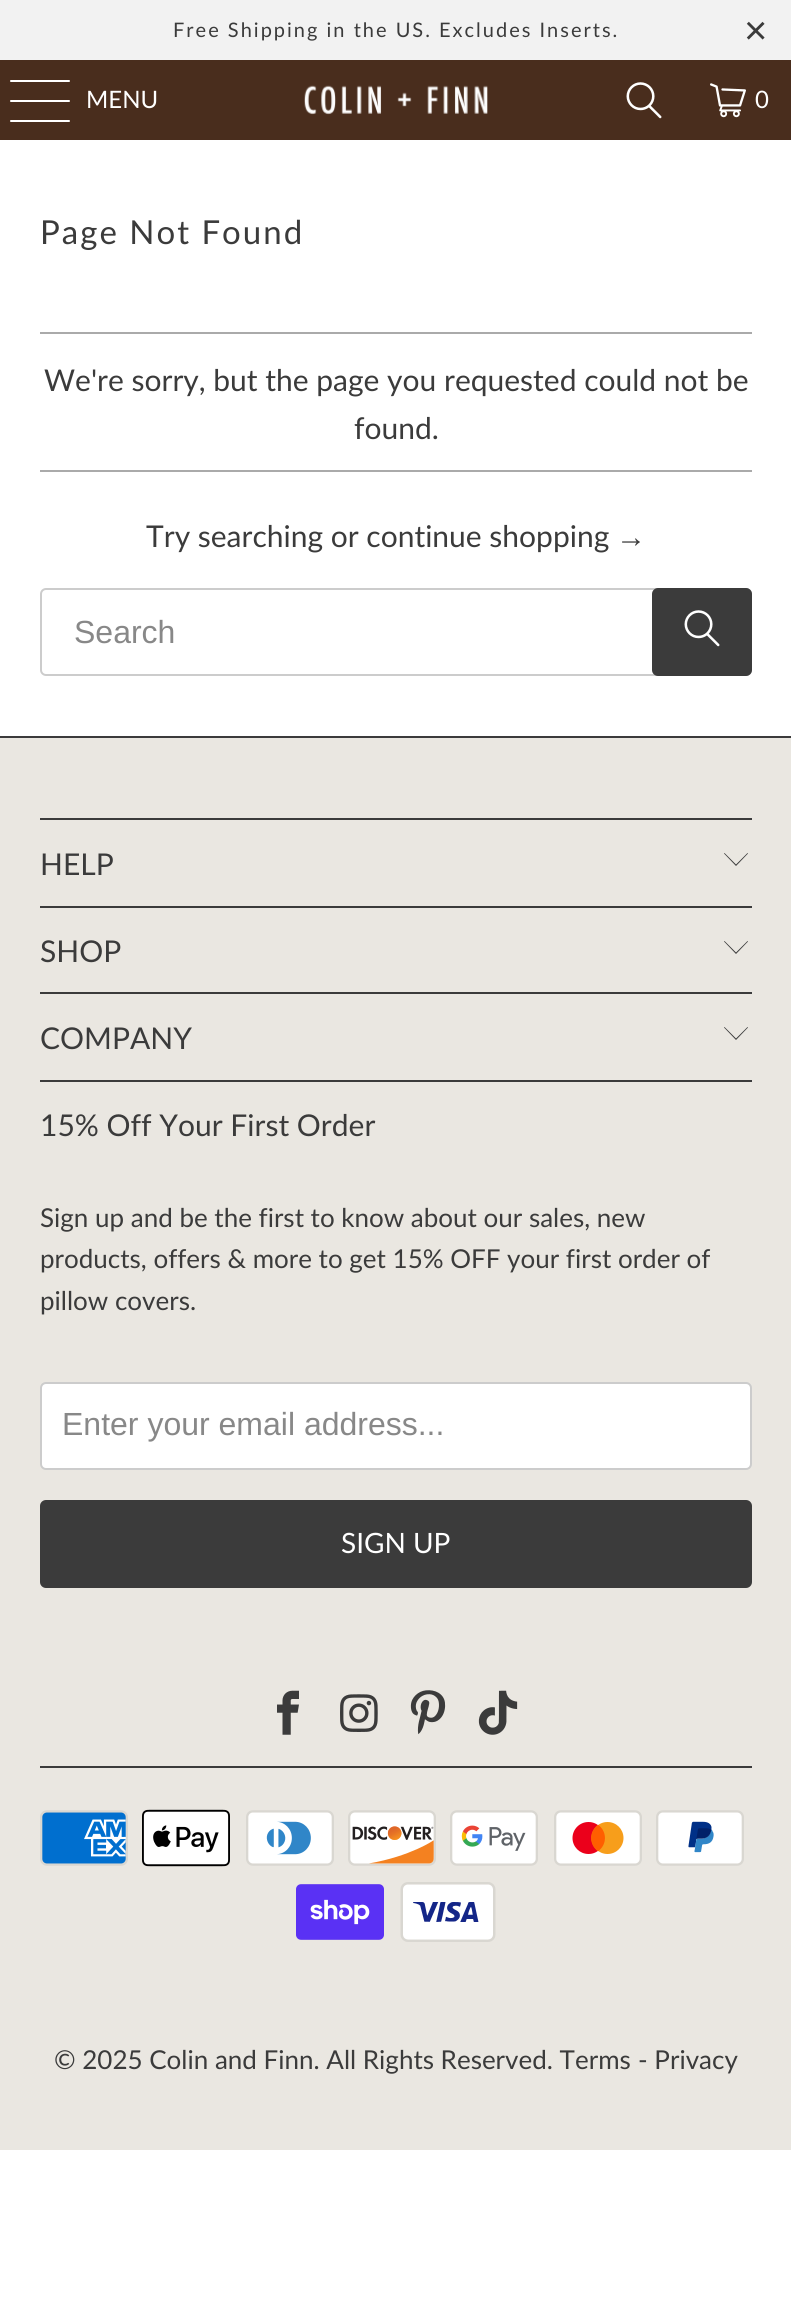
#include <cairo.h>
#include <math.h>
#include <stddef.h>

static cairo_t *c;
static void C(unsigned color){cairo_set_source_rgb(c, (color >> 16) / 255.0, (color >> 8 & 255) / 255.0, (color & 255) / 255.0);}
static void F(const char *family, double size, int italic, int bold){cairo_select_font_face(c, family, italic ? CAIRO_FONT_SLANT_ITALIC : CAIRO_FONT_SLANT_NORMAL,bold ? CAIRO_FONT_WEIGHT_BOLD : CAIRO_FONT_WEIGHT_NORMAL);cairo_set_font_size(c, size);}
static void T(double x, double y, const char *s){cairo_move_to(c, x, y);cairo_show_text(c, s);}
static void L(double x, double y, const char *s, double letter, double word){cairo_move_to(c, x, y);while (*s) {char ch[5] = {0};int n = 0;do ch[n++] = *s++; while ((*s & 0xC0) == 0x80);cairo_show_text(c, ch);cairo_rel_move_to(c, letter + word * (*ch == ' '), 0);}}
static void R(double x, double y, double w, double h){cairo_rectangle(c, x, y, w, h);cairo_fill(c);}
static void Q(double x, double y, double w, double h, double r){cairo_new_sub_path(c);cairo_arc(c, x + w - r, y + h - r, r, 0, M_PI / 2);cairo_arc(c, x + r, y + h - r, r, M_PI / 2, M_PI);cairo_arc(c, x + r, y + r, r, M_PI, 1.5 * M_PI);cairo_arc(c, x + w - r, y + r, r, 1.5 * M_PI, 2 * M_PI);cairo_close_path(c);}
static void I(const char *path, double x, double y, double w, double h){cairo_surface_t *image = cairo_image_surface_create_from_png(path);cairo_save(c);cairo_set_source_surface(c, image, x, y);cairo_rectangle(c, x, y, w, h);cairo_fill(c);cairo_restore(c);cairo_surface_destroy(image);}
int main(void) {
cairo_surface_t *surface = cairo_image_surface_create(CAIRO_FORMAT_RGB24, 791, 2300);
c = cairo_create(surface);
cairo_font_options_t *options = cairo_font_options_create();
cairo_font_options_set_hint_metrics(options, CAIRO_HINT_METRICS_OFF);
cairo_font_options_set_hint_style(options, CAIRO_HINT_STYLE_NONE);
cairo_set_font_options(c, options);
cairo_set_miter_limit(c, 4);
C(0xffffff);
cairo_paint(c);
C(0xf2f2f2);
R(0,0,791,60);
F("Lato",20,0,0);
C(0x3b3b3b);
L(173,37,"Free Shipping in the US. Excludes Inserts.",2,0);
F("Liberation Sans",40,0,0);
L(744,44,"×",2,0);
C(0x492d1d);
R(0,60,791,80);
C(0xffffff);
Q(10,80,60,2,1);
cairo_fill(c);
Q(10,100,60,2,1);
cairo_fill(c);
Q(10,120,60,2,1);
cairo_fill(c);
F("Lato",24,0,0);
T(86,108,"MENU");
I("1.png",304,85,184,30);
I("2.png",626,82,36,37);
I("3.png",710,83,36,35);
T(755,108,"0");
F("Lato",33,0,0);
C(0x3b3b3b);
L(40,244,"Page Not Found",2,0);
C(0xaaaaaa);
R(40,332,712,2);
R(40,470,712,2);
F("Lato",30,0,0);
C(0x3b3b3b);
T(44,391,"We're sorry, but the page you requested could not be");
T(354,439,"found.");
T(146,547,"Try searching or continue shopping");
F("Liberation Sans",30,0,0);
T(616,547,"→");
Q(41,589,710,86,5);
C(0xcccccc);
cairo_stroke(c);
F("Liberation Sans",32,0,0);
C(0x888888);
T(74,643,"Search");
C(0x3b3b3b);
Q(652,588,100,88,6);
cairo_fill(c);
I("4.png",684,610,36,37);
C(0xeae7e1);
R(0,738,791,1412);
C(0x3b3b3b);
R(0,736,791,2);
R(40,818,712,2);
F("Lato",30,0,0);
T(40,875,"HELP");
cairo_new_path(c);
cairo_move_to(c,736,866);
cairo_line_to(c,724,853.5);
cairo_line_to(c,724.5,853);
cairo_line_to(c,736,864.5);
cairo_line_to(c,747.5,853);
cairo_line_to(c,748,853.5);
cairo_close_path(c);
cairo_fill(c);
R(40,906,712,2);
T(40,962,"SHOP");
cairo_new_path(c);
cairo_move_to(c,736,954);
cairo_line_to(c,724,941.5);
cairo_line_to(c,724.5,941);
cairo_line_to(c,736,952.5);
cairo_line_to(c,747.5,941);
cairo_line_to(c,748,941.5);
cairo_close_path(c);
cairo_fill(c);
R(40,992,712,2);
T(40,1049,"COMPANY");
cairo_new_path(c);
cairo_move_to(c,736,1040);
cairo_line_to(c,724,1027.5);
cairo_line_to(c,724.5,1027);
cairo_line_to(c,736,1038.5);
cairo_line_to(c,747.5,1027);
cairo_line_to(c,748,1027.5);
cairo_close_path(c);
cairo_fill(c);
R(40,1080,712,2);
T(40,1136,"15% Off Your First Order");
F("Lato",26,0,0);
T(40,1227,"Sign up and be the first to know about our sales, new");
T(40,1268,"products, offers & more to get 15% OFF your first order of");
T(40,1310,"pillow covers.");
C(0xffffff);
Q(41,1383,710,86,5);
cairo_fill_preserve(c);
C(0xcccccc);
cairo_stroke(c);
F("Liberation Sans",32,0,0);
C(0x888888);
T(62,1435,"Enter your email address...");
C(0x3b3b3b);
Q(41,1501,710,86,5);
cairo_fill_preserve(c);
cairo_stroke(c);
F("Lato",28,0,0);
C(0xffffff);
T(341,1553,"SIGN UP");
I("5.png",277,1690,22,45);
I("6.png",340,1694,38,38);
I("7.png",410,1690,36,45);
I("8.png",478,1690,40,45);
C(0x3b3b3b);
R(40,1766,712,2);
I("9.png",40,1810,88,56);
I("10.png",142,1809,88,58);
I("11.png",246,1810,88,56);
I("12.png",348,1810,88,56);
I("13.png",450,1810,88,56);
I("14.png",554,1810,88,56);
I("15.png",656,1810,88,56);
I("16.png",296,1884,88,56);
I("17.png",400,1882,96,60);
F("Lato",26,0,0);
T(54,2069,"© 2025 Colin and Finn. All Rights Reserved. Terms");
T(638,2069,"- Privacy");
cairo_surface_write_to_png(surface, "o.png");
cairo_font_options_destroy(options);
cairo_destroy(c);
cairo_surface_destroy(surface);
return 0;
}
